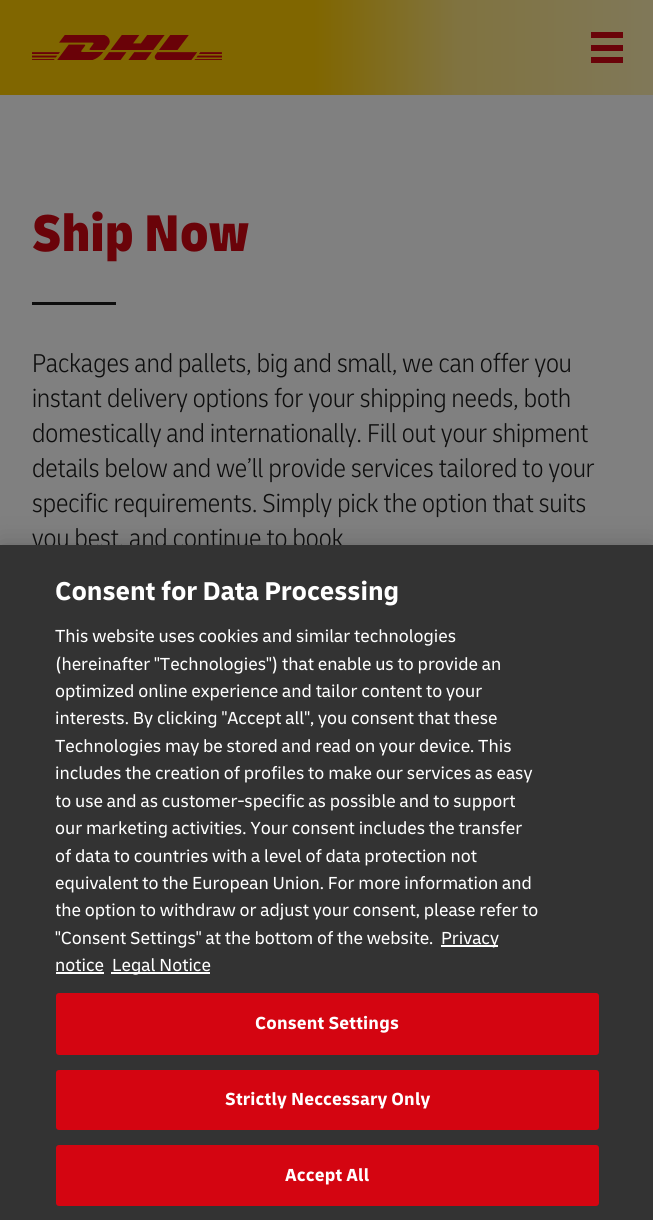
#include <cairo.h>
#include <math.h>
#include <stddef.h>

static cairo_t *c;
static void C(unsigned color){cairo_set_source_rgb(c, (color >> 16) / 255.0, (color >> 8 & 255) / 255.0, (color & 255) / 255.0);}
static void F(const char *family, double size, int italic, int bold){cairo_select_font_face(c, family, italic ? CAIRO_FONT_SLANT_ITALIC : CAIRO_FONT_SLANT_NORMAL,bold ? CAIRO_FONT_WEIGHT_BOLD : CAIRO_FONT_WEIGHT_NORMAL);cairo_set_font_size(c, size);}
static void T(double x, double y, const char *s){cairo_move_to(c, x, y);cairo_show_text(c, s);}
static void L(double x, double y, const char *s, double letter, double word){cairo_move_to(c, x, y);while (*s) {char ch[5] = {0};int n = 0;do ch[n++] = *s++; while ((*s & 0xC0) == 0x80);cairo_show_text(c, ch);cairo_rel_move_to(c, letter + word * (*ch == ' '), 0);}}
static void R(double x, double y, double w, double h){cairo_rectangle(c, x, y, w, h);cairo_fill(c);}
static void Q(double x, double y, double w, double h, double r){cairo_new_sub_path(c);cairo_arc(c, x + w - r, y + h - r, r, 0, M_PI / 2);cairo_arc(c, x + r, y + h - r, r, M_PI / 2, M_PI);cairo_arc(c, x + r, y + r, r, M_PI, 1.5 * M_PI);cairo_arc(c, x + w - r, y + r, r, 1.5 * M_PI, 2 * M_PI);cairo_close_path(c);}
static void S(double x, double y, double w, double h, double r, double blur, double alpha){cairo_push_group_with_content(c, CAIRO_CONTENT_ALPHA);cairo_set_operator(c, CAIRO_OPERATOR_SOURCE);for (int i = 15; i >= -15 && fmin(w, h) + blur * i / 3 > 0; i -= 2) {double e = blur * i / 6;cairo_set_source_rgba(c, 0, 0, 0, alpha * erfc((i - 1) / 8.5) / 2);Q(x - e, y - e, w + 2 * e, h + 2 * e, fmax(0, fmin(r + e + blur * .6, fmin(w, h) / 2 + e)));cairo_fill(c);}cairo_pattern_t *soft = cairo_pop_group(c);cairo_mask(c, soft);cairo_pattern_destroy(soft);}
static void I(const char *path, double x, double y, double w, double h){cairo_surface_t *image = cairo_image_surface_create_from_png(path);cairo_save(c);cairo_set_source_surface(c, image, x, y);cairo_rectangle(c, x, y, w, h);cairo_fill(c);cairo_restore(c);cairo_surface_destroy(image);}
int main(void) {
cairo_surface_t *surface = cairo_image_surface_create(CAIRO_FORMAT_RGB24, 653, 1220);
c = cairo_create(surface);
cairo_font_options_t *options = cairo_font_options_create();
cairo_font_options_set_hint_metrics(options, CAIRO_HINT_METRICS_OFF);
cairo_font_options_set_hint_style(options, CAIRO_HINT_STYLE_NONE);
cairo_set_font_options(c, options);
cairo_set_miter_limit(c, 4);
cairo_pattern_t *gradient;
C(0x808080);
cairo_paint(c);
gradient = cairo_pattern_create_linear(0,47,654,47);
cairo_pattern_add_color_stop_rgba(gradient,0,0.502,0.4,0,1);
cairo_pattern_add_color_stop_rgba(gradient,.48,0.502,0.4,0,1);
cairo_pattern_add_color_stop_rgba(gradient,.7,0.502,0.451,0.251,1);
cairo_pattern_add_color_stop_rgba(gradient,1,0.502,0.471,0.349,1);
cairo_set_source(c,gradient);
cairo_pattern_destroy(gradient);
R(0,0,653,95);
I("1.png",32,35,190,25);
C(0x6a0309);
R(591,32,32,6);
R(591,45,32,6);
R(591,57,32,6);
F("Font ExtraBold",54,0,0);
T(32,251,"Ship Now");
C(0x0d0d0d);
R(32,302,84,3);
F("Font Light",27,0,0);
T(32,372,"Packages and pallets, big and small, we can offer you");
T(32,407,"instant delivery options for your shipping needs, both");
T(32,442,"domestically and internationally. Fill out your shipment");
T(32,477,"details below and we’ll provide services tailored to your");
T(32,512,"specific requirements. Simply pick the option that suits");
T(32,547,"you best, and continue to book");
C(0x000000);
S(0,545,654,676,0,13.5,.2);
C(0x333333);
R(0,545,653,675);
F("Font",27,0,1);
C(0xffffff);
T(55,600,"Consent for Data Processing");
F("Font",18.3,0,0);
T(55,642,"This website uses cookies and similar technologies");
T(55,670,"(hereinafter \"Technologies\") that enable us to provide an");
T(55,697,"optimized online experience and tailor content to your");
T(55,724,"interests. By clicking \"Accept all\", you consent that these");
T(55,752,"Technologies may be stored and read on your device. This");
T(55,779,"includes the creation of profiles to make our services as easy");
cairo_save(c);
cairo_rectangle(c,56,573,514,407);
cairo_clip(c);
T(55,807,"to use and as customer-specific as possible and to support");
cairo_restore(c);
T(55,834,"our marketing activities. Your consent includes the transfer");
T(55,862,"of data to countries with a level of data protection not");
T(55,889,"equivalent to the European Union. For more information and");
cairo_save(c);
cairo_rectangle(c,56,573,514,407);
cairo_clip(c);
T(55,916,"the option to withdraw or adjust your consent, please refer to");
cairo_restore(c);
T(55,944,"\"Consent Settings\" at the bottom of the website.");
R(441,945,57,2);
T(441,944,"Privacy");
T(55,971,"notice");
R(56,972,48,2);
R(111,972,99,2);
T(112,971,"Legal Notice");
C(0xd40511);
Q(57,994,541,60,2);
cairo_fill_preserve(c);
cairo_stroke(c);
F("Font",18.3,0,1);
C(0xffffff);
L(255,1029,"Consent Settings",.2,0);
C(0xd40511);
Q(57,1071,541,58,2);
cairo_fill_preserve(c);
cairo_stroke(c);
C(0xffffff);
L(225,1105,"Strictly Neccessary Only",.2,0);
C(0xd40511);
Q(57,1146,541,59,2);
cairo_fill_preserve(c);
cairo_stroke(c);
C(0xffffff);
L(285,1181,"Accept All",.2,0);
cairo_surface_write_to_png(surface, "o.png");
cairo_font_options_destroy(options);
cairo_destroy(c);
cairo_surface_destroy(surface);
return 0;
}
